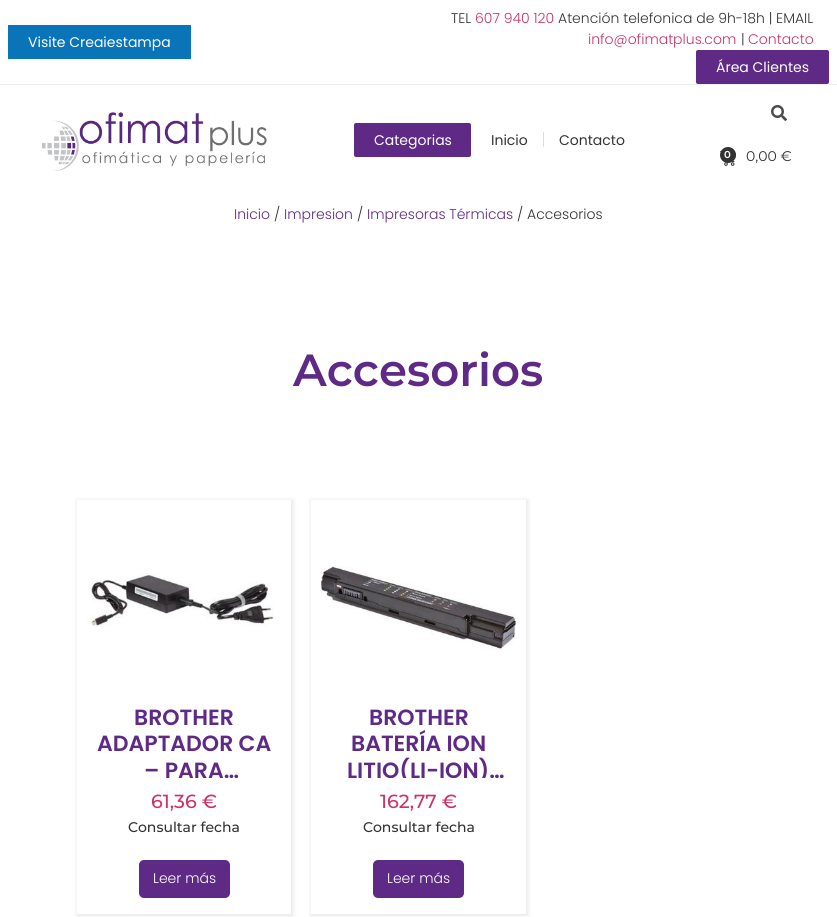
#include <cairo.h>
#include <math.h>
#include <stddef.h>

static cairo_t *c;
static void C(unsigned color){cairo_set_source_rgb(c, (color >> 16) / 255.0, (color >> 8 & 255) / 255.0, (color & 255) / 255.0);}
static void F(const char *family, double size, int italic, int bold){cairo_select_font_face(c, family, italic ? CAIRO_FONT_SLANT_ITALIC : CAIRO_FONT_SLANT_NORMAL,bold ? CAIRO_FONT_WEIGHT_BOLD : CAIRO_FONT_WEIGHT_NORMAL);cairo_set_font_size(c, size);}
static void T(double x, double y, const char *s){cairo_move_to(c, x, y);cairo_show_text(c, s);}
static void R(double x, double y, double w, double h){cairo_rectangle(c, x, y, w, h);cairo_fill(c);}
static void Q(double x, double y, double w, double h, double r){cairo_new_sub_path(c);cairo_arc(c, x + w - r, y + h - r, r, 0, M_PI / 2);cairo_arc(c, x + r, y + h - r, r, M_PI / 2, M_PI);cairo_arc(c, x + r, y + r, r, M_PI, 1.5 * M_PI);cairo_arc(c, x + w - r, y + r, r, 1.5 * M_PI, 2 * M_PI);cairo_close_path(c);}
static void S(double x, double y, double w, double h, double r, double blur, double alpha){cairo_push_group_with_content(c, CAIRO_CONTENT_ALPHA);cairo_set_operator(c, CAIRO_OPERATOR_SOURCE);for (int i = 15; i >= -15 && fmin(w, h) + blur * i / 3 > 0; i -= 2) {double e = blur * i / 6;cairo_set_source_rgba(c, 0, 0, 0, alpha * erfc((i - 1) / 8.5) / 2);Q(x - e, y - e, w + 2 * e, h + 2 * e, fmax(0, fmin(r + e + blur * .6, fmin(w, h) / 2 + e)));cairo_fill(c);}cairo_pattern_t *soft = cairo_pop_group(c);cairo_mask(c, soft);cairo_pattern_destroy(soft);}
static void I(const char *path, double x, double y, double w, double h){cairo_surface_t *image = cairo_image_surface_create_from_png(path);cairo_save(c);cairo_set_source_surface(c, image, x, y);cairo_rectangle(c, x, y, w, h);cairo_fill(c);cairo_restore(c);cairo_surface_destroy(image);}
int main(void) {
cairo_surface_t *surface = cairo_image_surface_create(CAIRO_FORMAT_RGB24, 837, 917);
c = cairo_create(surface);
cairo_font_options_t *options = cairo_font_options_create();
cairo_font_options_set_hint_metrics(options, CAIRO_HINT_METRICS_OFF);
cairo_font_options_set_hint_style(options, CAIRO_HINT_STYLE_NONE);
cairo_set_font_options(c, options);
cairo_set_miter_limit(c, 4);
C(0xffffff);
cairo_paint(c);
C(0xeeeeee);
R(0,84,837,1);
C(0x0974b8);
R(8,25,183,34);
F("Poppins",14,0,0);
C(0xffffff);
T(28,47,"Visite Creaiestampa");
F("Poppins Light",14,0,0);
C(0x333333);
T(451,23,"TEL");
C(0xcc3366);
T(475,23,"607 940 120");
C(0x333333);
T(558,23,"Atención telefonica de 9h-18h | EMAIL");
C(0xcc3366);
T(588,44,"info@ofimatplus.com");
C(0x333333);
T(741,44,"|");
C(0xcc3366);
T(748,44,"Contacto");
C(0x5f2a86);
Q(696,50,133,34,2);
cairo_fill(c);
F("Poppins",14,0,0);
C(0xffffff);
T(716,72,"Área Clientes");
I("1.png",42,112,225,59);
C(0x5f2a86);
Q(354,123,117,34,2);
cairo_fill(c);
C(0xffffff);
T(374,145,"Categorias");
C(0x333333);
T(491,145,"Inicio");
C(0xdddddd);
R(543,132,1,15);
C(0x333333);
T(559,145,"Contacto");
I("2.png",771,105,16,16);
I("3.png",720,150,16,16);
cairo_arc(c,728,155,8,0,2 * M_PI);
cairo_fill(c);
F("Montserrat SemiBold",10,0,0);
C(0xffffff);
T(724,158,"0");
F("Montserrat",14,0,0);
C(0x333333);
T(746,161,"0,00 €");
F("Poppins Light",14,0,0);
C(0x5f2a86);
T(234,219,"Inicio");
C(0x333333);
T(274,219,"/");
C(0x5f2a86);
T(284,219,"Impresion");
C(0x333333);
T(357,219,"/");
C(0x5f2a86);
T(367,219,"Impresoras Térmicas");
C(0x333333);
T(517,219,"/ Accesorios");
F("Montserrat SemiBold",45,0,0);
C(0x5f2a86);
T(293,386,"Accesorios");
cairo_save(c);
cairo_set_fill_rule(c,CAIRO_FILL_RULE_EVEN_ODD);
cairo_new_path(c);
cairo_move_to(c,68,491);
cairo_line_to(c,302,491);
cairo_line_to(c,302,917);
cairo_line_to(c,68,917);
cairo_close_path(c);
cairo_move_to(c,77,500);
cairo_line_to(c,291,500);
cairo_line_to(c,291,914);
cairo_line_to(c,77,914);
cairo_close_path(c);
cairo_clip(c);
C(0x000000);
S(77,500,216,416,0,2.5,.1);
cairo_restore(c);
I("4.png",87,573,187,54);
F("Poppins SemiBold",22,0,0);
T(134,725,"BROTHER");
T(97,751,"ADAPTADOR CA");
cairo_save(c);
cairo_rectangle(c,87,705,194,73);
cairo_clip(c);
T(144,778,"– PARA…");
cairo_restore(c);
F("Montserrat Medium",19,0,0);
C(0xcc3366);
T(151,808,"61,36 €");
F("Montserrat Medium",14,0,0);
C(0x333333);
T(128,832,"Consultar fecha");
C(0x5f2a86);
Q(139,860,91,38,5);
cairo_fill(c);
F("Poppins Light",14,0,0);
C(0xffffff);
T(153,883,"Leer más");
cairo_save(c);
cairo_set_fill_rule(c,CAIRO_FILL_RULE_EVEN_ODD);
cairo_new_path(c);
cairo_move_to(c,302,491);
cairo_line_to(c,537,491);
cairo_line_to(c,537,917);
cairo_line_to(c,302,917);
cairo_close_path(c);
cairo_move_to(c,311,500);
cairo_line_to(c,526,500);
cairo_line_to(c,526,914);
cairo_line_to(c,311,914);
cairo_close_path(c);
cairo_clip(c);
C(0x000000);
S(311,500,217,416,0,2.5,.1);
cairo_restore(c);
I("5.png",321,565,195,85);
F("Poppins SemiBold",22,0,0);
C(0x5f2a86);
T(369,725,"BROTHER");
T(351,751,"BATERÍA ION");
cairo_save(c);
cairo_rectangle(c,321,705,195,73);
cairo_clip(c);
T(347,778,"LITIO(LI-ION)…");
cairo_restore(c);
F("Montserrat Medium",19,0,0);
C(0xcc3366);
T(380,808,"162,77 €");
F("Montserrat Medium",14,0,0);
C(0x333333);
T(363,832,"Consultar fecha");
C(0x5f2a86);
Q(373,860,91,38,5);
cairo_fill(c);
F("Poppins Light",14,0,0);
C(0xffffff);
T(387,883,"Leer más");
cairo_surface_write_to_png(surface, "o.png");
cairo_font_options_destroy(options);
cairo_destroy(c);
cairo_surface_destroy(surface);
return 0;
}
